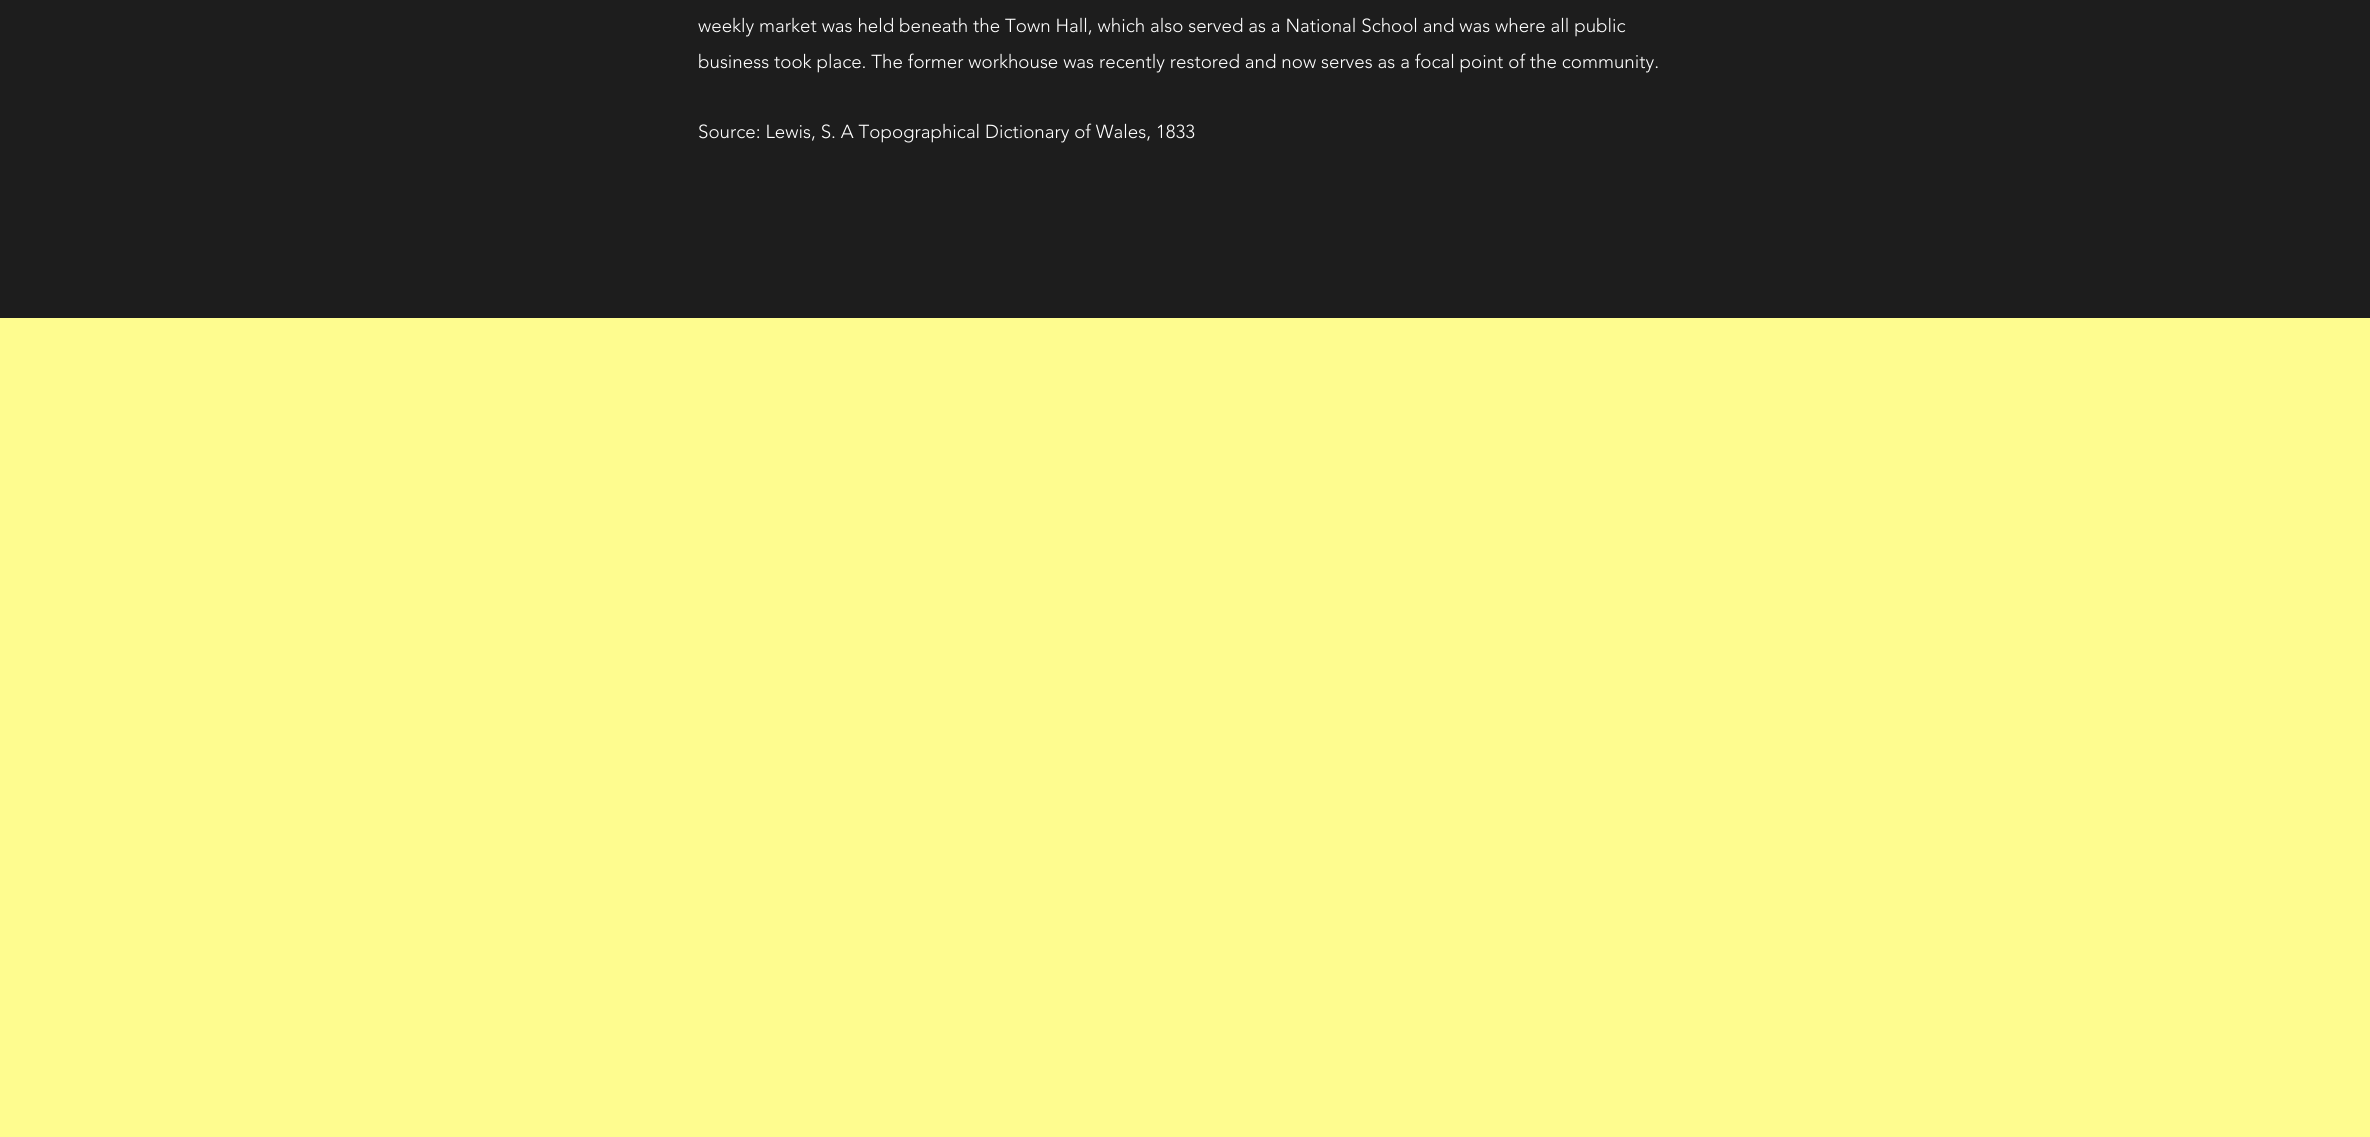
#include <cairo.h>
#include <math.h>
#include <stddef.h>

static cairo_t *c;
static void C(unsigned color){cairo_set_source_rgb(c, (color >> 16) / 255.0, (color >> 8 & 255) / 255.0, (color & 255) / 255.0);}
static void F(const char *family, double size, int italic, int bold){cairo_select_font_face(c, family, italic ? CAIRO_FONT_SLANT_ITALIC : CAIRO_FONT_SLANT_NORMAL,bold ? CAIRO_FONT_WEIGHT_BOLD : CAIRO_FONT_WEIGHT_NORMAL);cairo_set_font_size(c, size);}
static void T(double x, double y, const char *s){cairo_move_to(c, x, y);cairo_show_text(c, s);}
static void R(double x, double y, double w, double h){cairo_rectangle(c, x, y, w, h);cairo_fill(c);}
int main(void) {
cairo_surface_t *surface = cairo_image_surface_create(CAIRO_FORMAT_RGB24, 2370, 1137);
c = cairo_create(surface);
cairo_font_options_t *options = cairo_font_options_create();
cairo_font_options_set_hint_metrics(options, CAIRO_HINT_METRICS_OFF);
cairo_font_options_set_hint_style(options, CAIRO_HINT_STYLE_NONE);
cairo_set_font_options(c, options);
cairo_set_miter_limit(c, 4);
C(0x1d1d1d);
cairo_paint(c);
F("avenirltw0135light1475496 Light",18.75,0,0);
C(0xffffff);
T(698,32,"weekly market was held beneath the Town Hall, which also served as a National School and was where all public");
T(698,68,"business took place. The former workhouse was recently restored and now serves as a focal point of the community.");
T(698,138,"Source: Lewis, S. A Topographical Dictionary of Wales, 1833");
C(0xfefc8f);
R(0,318,2370,819);
cairo_surface_write_to_png(surface, "o.png");
cairo_font_options_destroy(options);
cairo_destroy(c);
cairo_surface_destroy(surface);
return 0;
}
